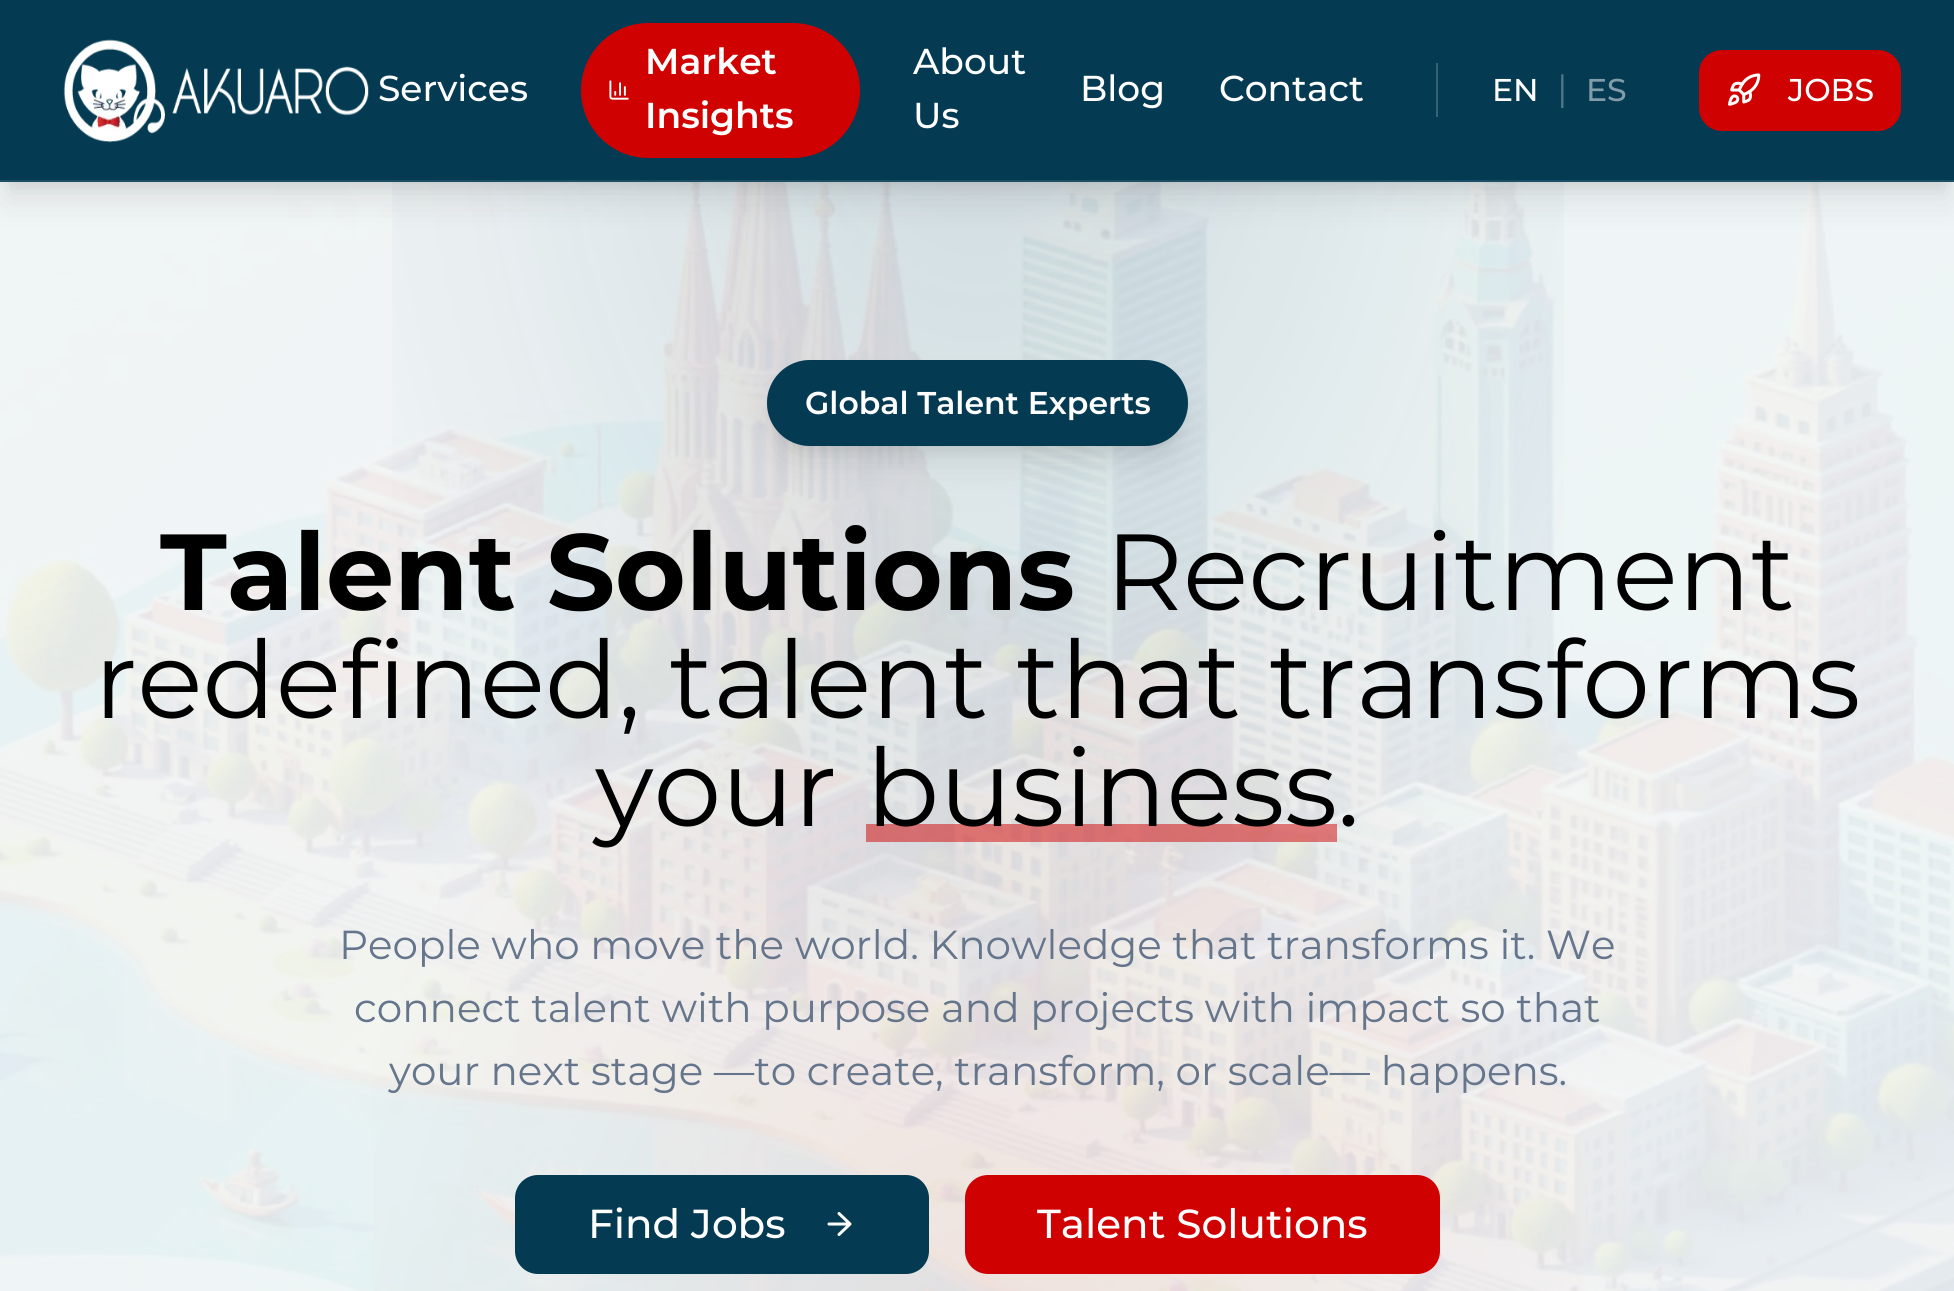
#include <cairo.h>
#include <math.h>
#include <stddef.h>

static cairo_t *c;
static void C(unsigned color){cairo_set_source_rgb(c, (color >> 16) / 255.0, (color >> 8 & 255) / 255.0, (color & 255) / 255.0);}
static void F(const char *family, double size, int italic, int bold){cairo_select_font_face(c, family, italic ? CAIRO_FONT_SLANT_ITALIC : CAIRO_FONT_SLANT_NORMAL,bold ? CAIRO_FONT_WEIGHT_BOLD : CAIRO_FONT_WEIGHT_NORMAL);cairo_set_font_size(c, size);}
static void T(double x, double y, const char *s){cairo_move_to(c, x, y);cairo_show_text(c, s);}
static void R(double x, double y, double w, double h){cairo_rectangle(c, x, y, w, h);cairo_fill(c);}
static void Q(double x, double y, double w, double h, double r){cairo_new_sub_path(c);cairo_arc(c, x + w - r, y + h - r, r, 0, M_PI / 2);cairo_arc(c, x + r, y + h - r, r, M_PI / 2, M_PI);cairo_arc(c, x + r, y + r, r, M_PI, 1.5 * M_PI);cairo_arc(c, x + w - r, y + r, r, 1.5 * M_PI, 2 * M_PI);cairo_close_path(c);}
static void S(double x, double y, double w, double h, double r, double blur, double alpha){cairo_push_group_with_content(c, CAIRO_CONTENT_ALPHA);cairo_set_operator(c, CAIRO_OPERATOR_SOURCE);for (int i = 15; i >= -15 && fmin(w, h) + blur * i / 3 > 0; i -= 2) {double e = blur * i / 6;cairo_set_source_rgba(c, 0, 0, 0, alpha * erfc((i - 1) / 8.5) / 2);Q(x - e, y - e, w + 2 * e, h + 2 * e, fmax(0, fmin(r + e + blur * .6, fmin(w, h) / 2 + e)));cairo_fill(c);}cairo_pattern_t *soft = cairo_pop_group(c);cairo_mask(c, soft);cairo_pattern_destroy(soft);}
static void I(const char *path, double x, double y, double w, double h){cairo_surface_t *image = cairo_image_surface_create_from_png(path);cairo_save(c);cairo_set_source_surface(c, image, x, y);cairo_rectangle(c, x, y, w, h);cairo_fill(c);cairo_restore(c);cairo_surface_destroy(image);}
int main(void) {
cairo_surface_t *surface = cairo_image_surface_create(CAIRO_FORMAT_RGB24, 1954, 1291);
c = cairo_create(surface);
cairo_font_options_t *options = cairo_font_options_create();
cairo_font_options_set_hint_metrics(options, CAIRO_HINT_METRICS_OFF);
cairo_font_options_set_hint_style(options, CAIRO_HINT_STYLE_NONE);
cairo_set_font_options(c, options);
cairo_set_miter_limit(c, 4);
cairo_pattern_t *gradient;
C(0xffffff);
cairo_paint(c);
gradient = cairo_pattern_create_radial(0,0,0,0,0,1);
cairo_pattern_set_matrix(gradient, &(cairo_matrix_t){1.0 / 1383, 0, 0, 1.0 / 2208, -1.0 * 978 / 1383, -1.0 * 1562 / 2208});
cairo_pattern_add_color_stop_rgba(gradient,0,0.984,0.902,0.902,1);
cairo_pattern_add_color_stop_rgba(gradient,.5,1,1,1,1);
cairo_set_source(c,gradient);
cairo_pattern_destroy(gradient);
R(373,570,1210,721);
gradient = cairo_pattern_create_radial(0,0,0,0,0,1);
cairo_pattern_set_matrix(gradient, &(cairo_matrix_t){1.0 / 1383, 0, 0, 1.0 / 2208, -1.0 * 978 / 1383, -1.0 * 0 / 2208});
cairo_pattern_add_color_stop_rgba(gradient,0,0.016,0.231,0.325,.15);
cairo_pattern_add_color_stop_rgba(gradient,.5,0.016,0.231,0.325,0);
cairo_set_source(c,gradient);
cairo_pattern_destroy(gradient);
R(392,182,1172,760);
I("4.png",0,182,1954,1109);
gradient = cairo_pattern_create_linear(98,-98,1857,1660);
cairo_pattern_add_color_stop_rgba(gradient,0,0.016,0.231,0.325,.05);
cairo_pattern_add_color_stop_rgba(gradient,1,0.024,0.341,0.478,.05);
cairo_set_source(c,gradient);
cairo_pattern_destroy(gradient);
R(0,182,1954,1109);
C(0x000000);
S(9,18,1937,164,0,7,.1);
S(7,29,1942,169,0,17,.1);
C(0x043b53);
R(0,0,1954,180);
C(0x1d4f64);
R(0,180,1954,2);
I("1.png",63,39,306,104);
F("Montserrat Medium",36,0,0);
C(0xffffff);
T(378,101,"Services");
C(0xd00101);
Q(581,23,279,135,67.5);
cairo_fill(c);
F("Montserrat SemiBold",36,0,0);
C(0xffffff);
T(645,74,"Market");
I("2.png",609,80,20,20);
T(645,128,"Insights");
F("Montserrat Medium",36,0,0);
T(913,74,"About");
T(913,128,"Us");
T(1080,101,"Blog");
T(1219,101,"Contact");
C(0x366275);
R(1436,63,2,54);
F("Montserrat Medium",31.5,0,0);
C(0xffffff);
T(1492,101,"EN");
F("Montserrat",36,0,0);
C(0x4f7687);
T(1557,101,"|");
F("Montserrat Medium",31.5,0,0);
C(0x829da9);
T(1586,101,"ES");
C(0xd00101);
Q(1699,50,202,81,23);
cairo_fill(c);
I("3.png",1728,73,33,33);
C(0xffffff);
T(1788,101,"JOBS");
C(0x000000);
S(776,378,403,68,34,7,.1);
S(774,389,407,72,36,17,.1);
C(0x043b53);
Q(767,360,421,86,43);
cairo_fill(c);
Q(768,361,419,84,42);
cairo_set_source_rgba(c,0.016,0.231,0.325,0.3);
cairo_stroke(c);
F("Montserrat SemiBold",31.5,0,0);
C(0xffffff);
T(805,414,"Global Talent Experts");
F("Montserrat",108,0,1);
C(0x000000);
T(160,610,"Talent Solutions");
F("Montserrat",108,0,0);
T(1105,610,"Recruitment");
T(94,718,"redefined, talent that transforms");
T(595,826,"your");
cairo_set_source_rgba(c,0.816,0.004,0.004,0.5);
R(866,824,471,18);
C(0x000000);
T(866,826,"business");
T(1337,826,".");
F("Montserrat",40.5,0,0);
C(0x65758b);
T(339,959,"People who move the world. Knowledge that transforms it. We");
T(354,1022,"connect talent with purpose and projects with impact so that");
T(389,1085,"your next stage —to create, transform, or scale— happens.");
C(0x043b53);
Q(515,1175,414,99,23);
cairo_fill(c);
F("Montserrat Medium",40.5,0,0);
C(0xffffff);
T(588,1238,"Find Jobs");
cairo_new_path(c);
cairo_move_to(c,829,1224);
cairo_line_to(c,850,1224);
cairo_move_to(c,839,1213.5);
cairo_line_to(c,850,1224);
cairo_line_to(c,839,1234.5);
cairo_set_line_width(c,3);
cairo_set_line_cap(c,CAIRO_LINE_CAP_ROUND);
cairo_set_line_join(c,CAIRO_LINE_JOIN_ROUND);
cairo_stroke(c);
C(0xd00101);
Q(965,1175,475,99,23);
cairo_fill(c);
C(0xffffff);
T(1037,1238,"Talent Solutions");
cairo_surface_write_to_png(surface, "o.png");
cairo_font_options_destroy(options);
cairo_destroy(c);
cairo_surface_destroy(surface);
return 0;
}
